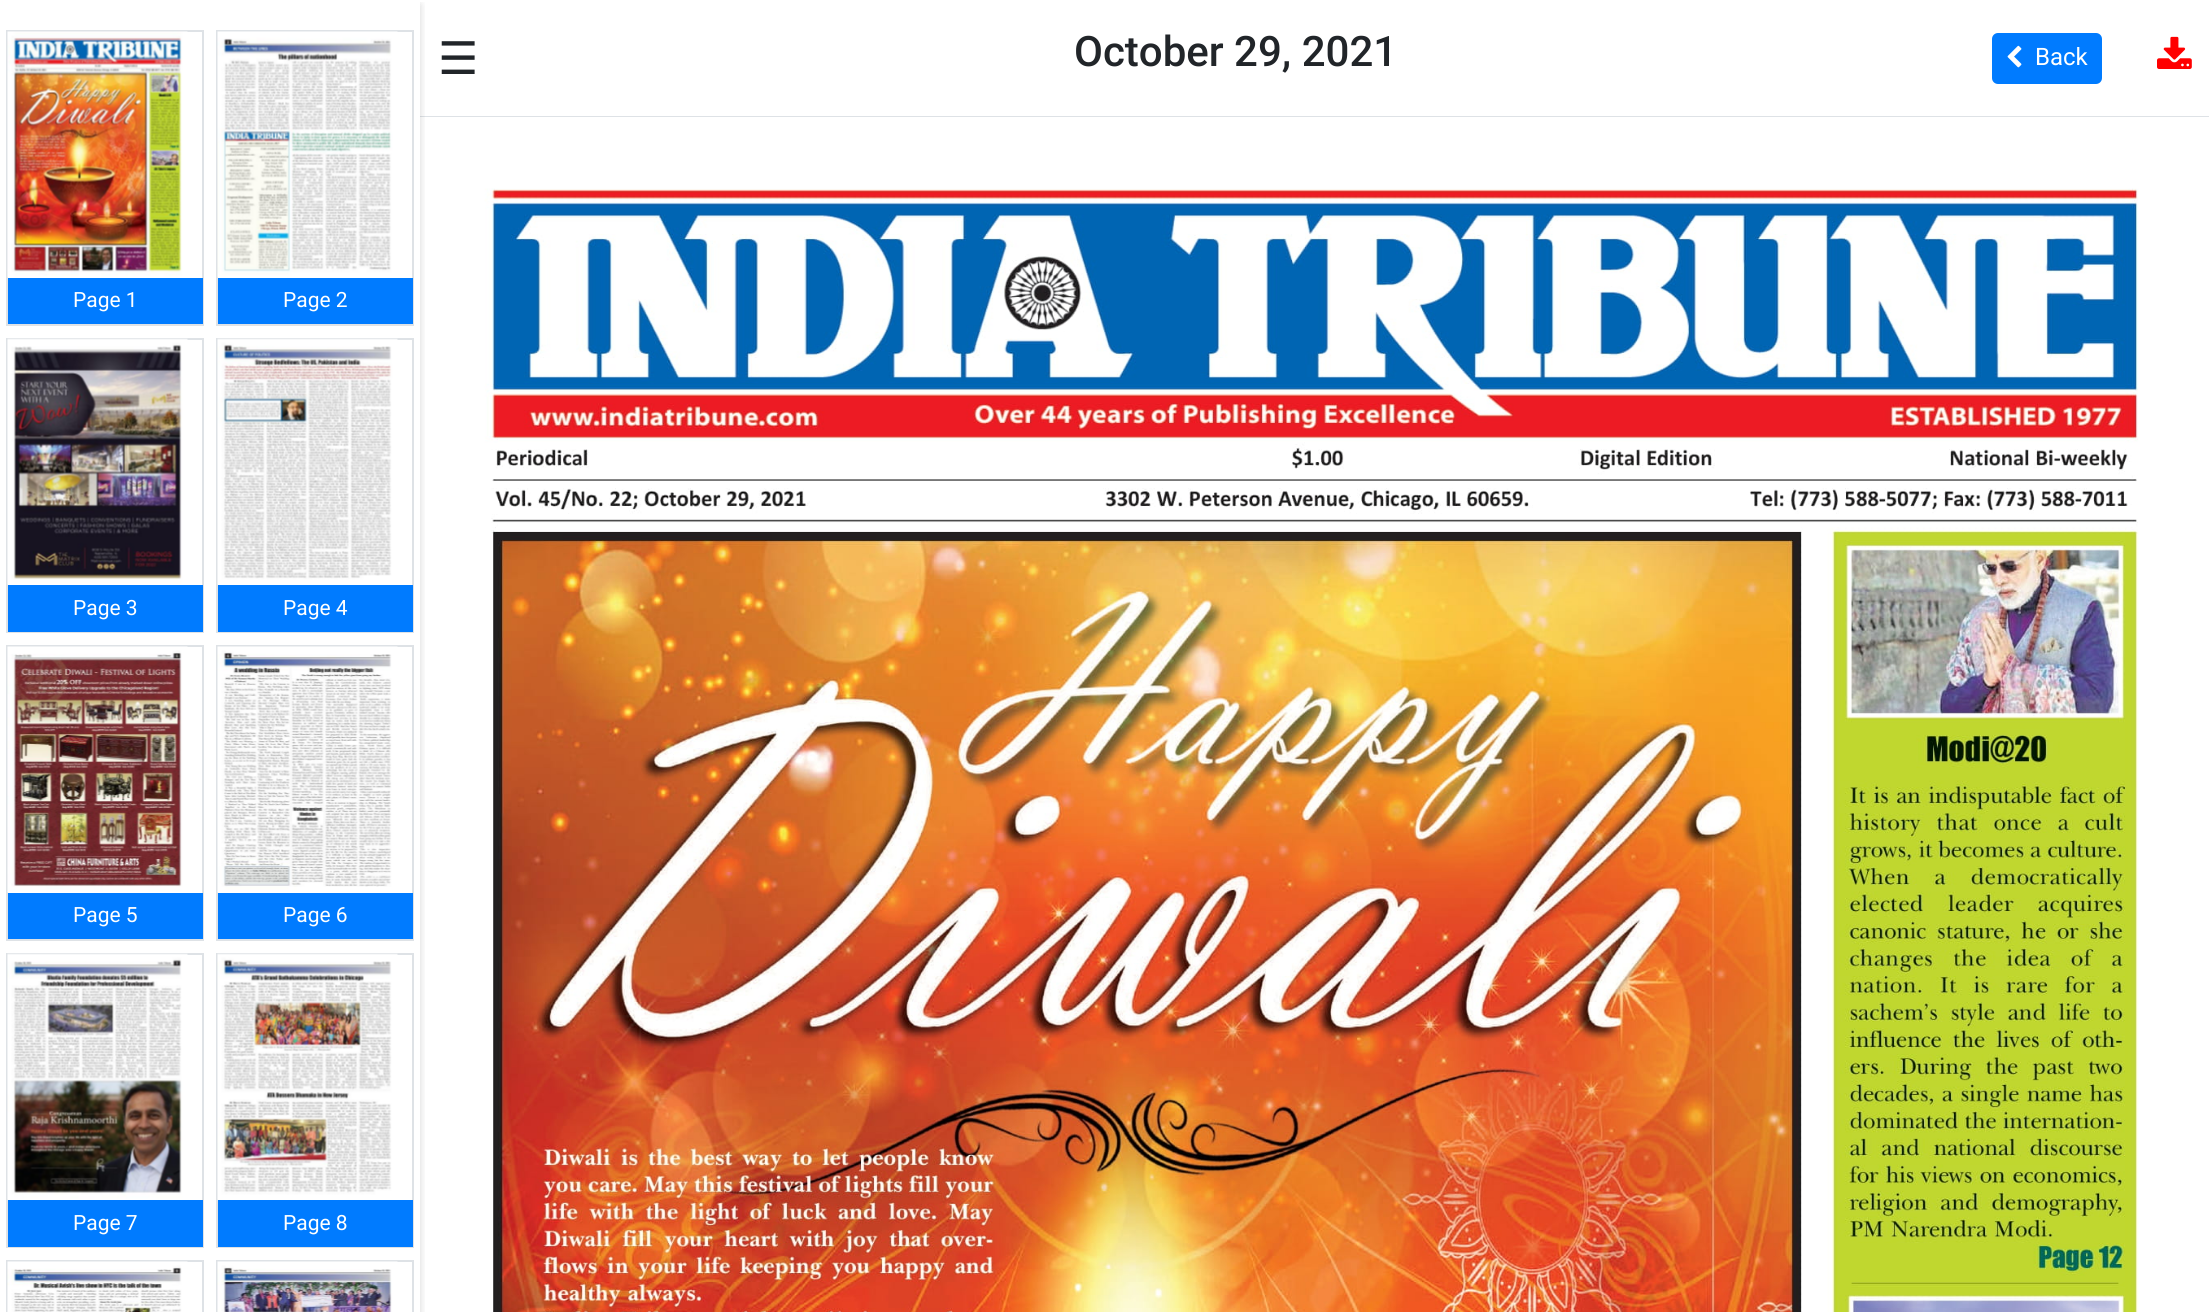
#include <cairo.h>
#include <math.h>
#include <stddef.h>

static cairo_t *c;
static void C(unsigned color){cairo_set_source_rgb(c, (color >> 16) / 255.0, (color >> 8 & 255) / 255.0, (color & 255) / 255.0);}
static void F(const char *family, double size, int italic, int bold){cairo_select_font_face(c, family, italic ? CAIRO_FONT_SLANT_ITALIC : CAIRO_FONT_SLANT_NORMAL,bold ? CAIRO_FONT_WEIGHT_BOLD : CAIRO_FONT_WEIGHT_NORMAL);cairo_set_font_size(c, size);}
static void T(double x, double y, const char *s){cairo_move_to(c, x, y);cairo_show_text(c, s);}
static void R(double x, double y, double w, double h){cairo_rectangle(c, x, y, w, h);cairo_fill(c);}
static void Q(double x, double y, double w, double h, double r){cairo_new_sub_path(c);cairo_arc(c, x + w - r, y + h - r, r, 0, M_PI / 2);cairo_arc(c, x + r, y + h - r, r, M_PI / 2, M_PI);cairo_arc(c, x + r, y + r, r, M_PI, 1.5 * M_PI);cairo_arc(c, x + w - r, y + r, r, 1.5 * M_PI, 2 * M_PI);cairo_close_path(c);}
static void S(double x, double y, double w, double h, double r, double blur, double alpha){cairo_push_group_with_content(c, CAIRO_CONTENT_ALPHA);cairo_set_operator(c, CAIRO_OPERATOR_SOURCE);for (int i = 15; i >= -15 && fmin(w, h) + blur * i / 3 > 0; i -= 2) {double e = blur * i / 6;cairo_set_source_rgba(c, 0, 0, 0, alpha * erfc((i - 1) / 8.5) / 2);Q(x - e, y - e, w + 2 * e, h + 2 * e, fmax(0, fmin(r + e + blur * .6, fmin(w, h) / 2 + e)));cairo_fill(c);}cairo_pattern_t *soft = cairo_pop_group(c);cairo_mask(c, soft);cairo_pattern_destroy(soft);}
static void I(const char *path, double x, double y, double w, double h){cairo_surface_t *image = cairo_image_surface_create_from_png(path);cairo_save(c);cairo_set_source_surface(c, image, x, y);cairo_rectangle(c, x, y, w, h);cairo_fill(c);cairo_restore(c);cairo_surface_destroy(image);}
int main(void) {
cairo_surface_t *surface = cairo_image_surface_create(CAIRO_FORMAT_RGB24, 2209, 1312);
c = cairo_create(surface);
cairo_font_options_t *options = cairo_font_options_create();
cairo_font_options_set_hint_metrics(options, CAIRO_HINT_METRICS_OFF);
cairo_font_options_set_hint_style(options, CAIRO_HINT_STYLE_NONE);
cairo_set_font_options(c, options);
cairo_set_miter_limit(c, 4);
C(0xffffff);
cairo_paint(c);
C(0xdee2e6);
R(420,116,1789,1);
F("DejaVu Sans",45,0,0);
C(0x212529);
T(438,74,"☰");
F("Roboto Medium",42,0,0);
T(1074,66,"October 29, 2021");
C(0x007bff);
Q(1993,34,108,49,5);
cairo_fill_preserve(c);
cairo_stroke(c);
I("1.png",2007,45,15,23);
F("Roboto",24,0,0);
C(0xffffff);
T(2035,65,"Back");
I("2.png",2157,36,35,33);
I("3.png",420,117,1789,1195);
cairo_save(c);
cairo_rectangle(c,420,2,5,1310);
cairo_clip(c);
C(0x000000);
S(0,5,420,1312,0,4.5,.16);
cairo_restore(c);
cairo_rectangle(c,7,31,196,294);
C(0xdee2e6);
cairo_stroke(c);
I("4.png",7,31,181,247);
C(0x007bff);
R(8,278,195,46);
F("Roboto",21,0,0);
C(0xffffff);
T(73,307,"Page 1");
cairo_rectangle(c,217,31,196,294);
C(0xdee2e6);
cairo_stroke(c);
I("5.png",217,31,181,247);
C(0x007bff);
R(218,278,195,46);
C(0xffffff);
T(283,307,"Page 2");
cairo_rectangle(c,7,339,196,293);
C(0xdee2e6);
cairo_stroke(c);
I("6.png",7,338,181,248);
C(0x007bff);
R(8,585,195,47);
C(0xffffff);
T(73,615,"Page 3");
cairo_rectangle(c,217,339,196,293);
C(0xdee2e6);
cairo_stroke(c);
I("7.png",217,338,181,248);
C(0x007bff);
R(218,585,195,47);
C(0xffffff);
T(283,615,"Page 4");
cairo_rectangle(c,7,646,196,294);
C(0xdee2e6);
cairo_stroke(c);
I("8.png",7,646,181,247);
C(0x007bff);
R(8,893,195,46);
C(0xffffff);
T(73,922,"Page 5");
cairo_rectangle(c,217,646,196,294);
C(0xdee2e6);
cairo_stroke(c);
I("9.png",217,646,181,247);
C(0x007bff);
R(218,893,195,46);
C(0xffffff);
T(283,922,"Page 6");
cairo_rectangle(c,7,954,196,293);
C(0xdee2e6);
cairo_stroke(c);
I("10.png",7,953,181,248);
C(0x007bff);
R(8,1200,195,47);
C(0xffffff);
T(73,1230,"Page 7");
cairo_rectangle(c,217,954,196,293);
C(0xdee2e6);
cairo_stroke(c);
I("11.png",217,953,181,248);
C(0x007bff);
R(218,1200,195,47);
C(0xffffff);
T(283,1230,"Page 8");
cairo_rectangle(c,7,1261,196,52);
C(0xdee2e6);
cairo_stroke(c);
I("12.png",7,1261,181,51);
cairo_rectangle(c,217,1261,196,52);
cairo_stroke(c);
I("13.png",217,1261,181,51);
cairo_surface_write_to_png(surface, "o.png");
cairo_font_options_destroy(options);
cairo_destroy(c);
cairo_surface_destroy(surface);
return 0;
}
